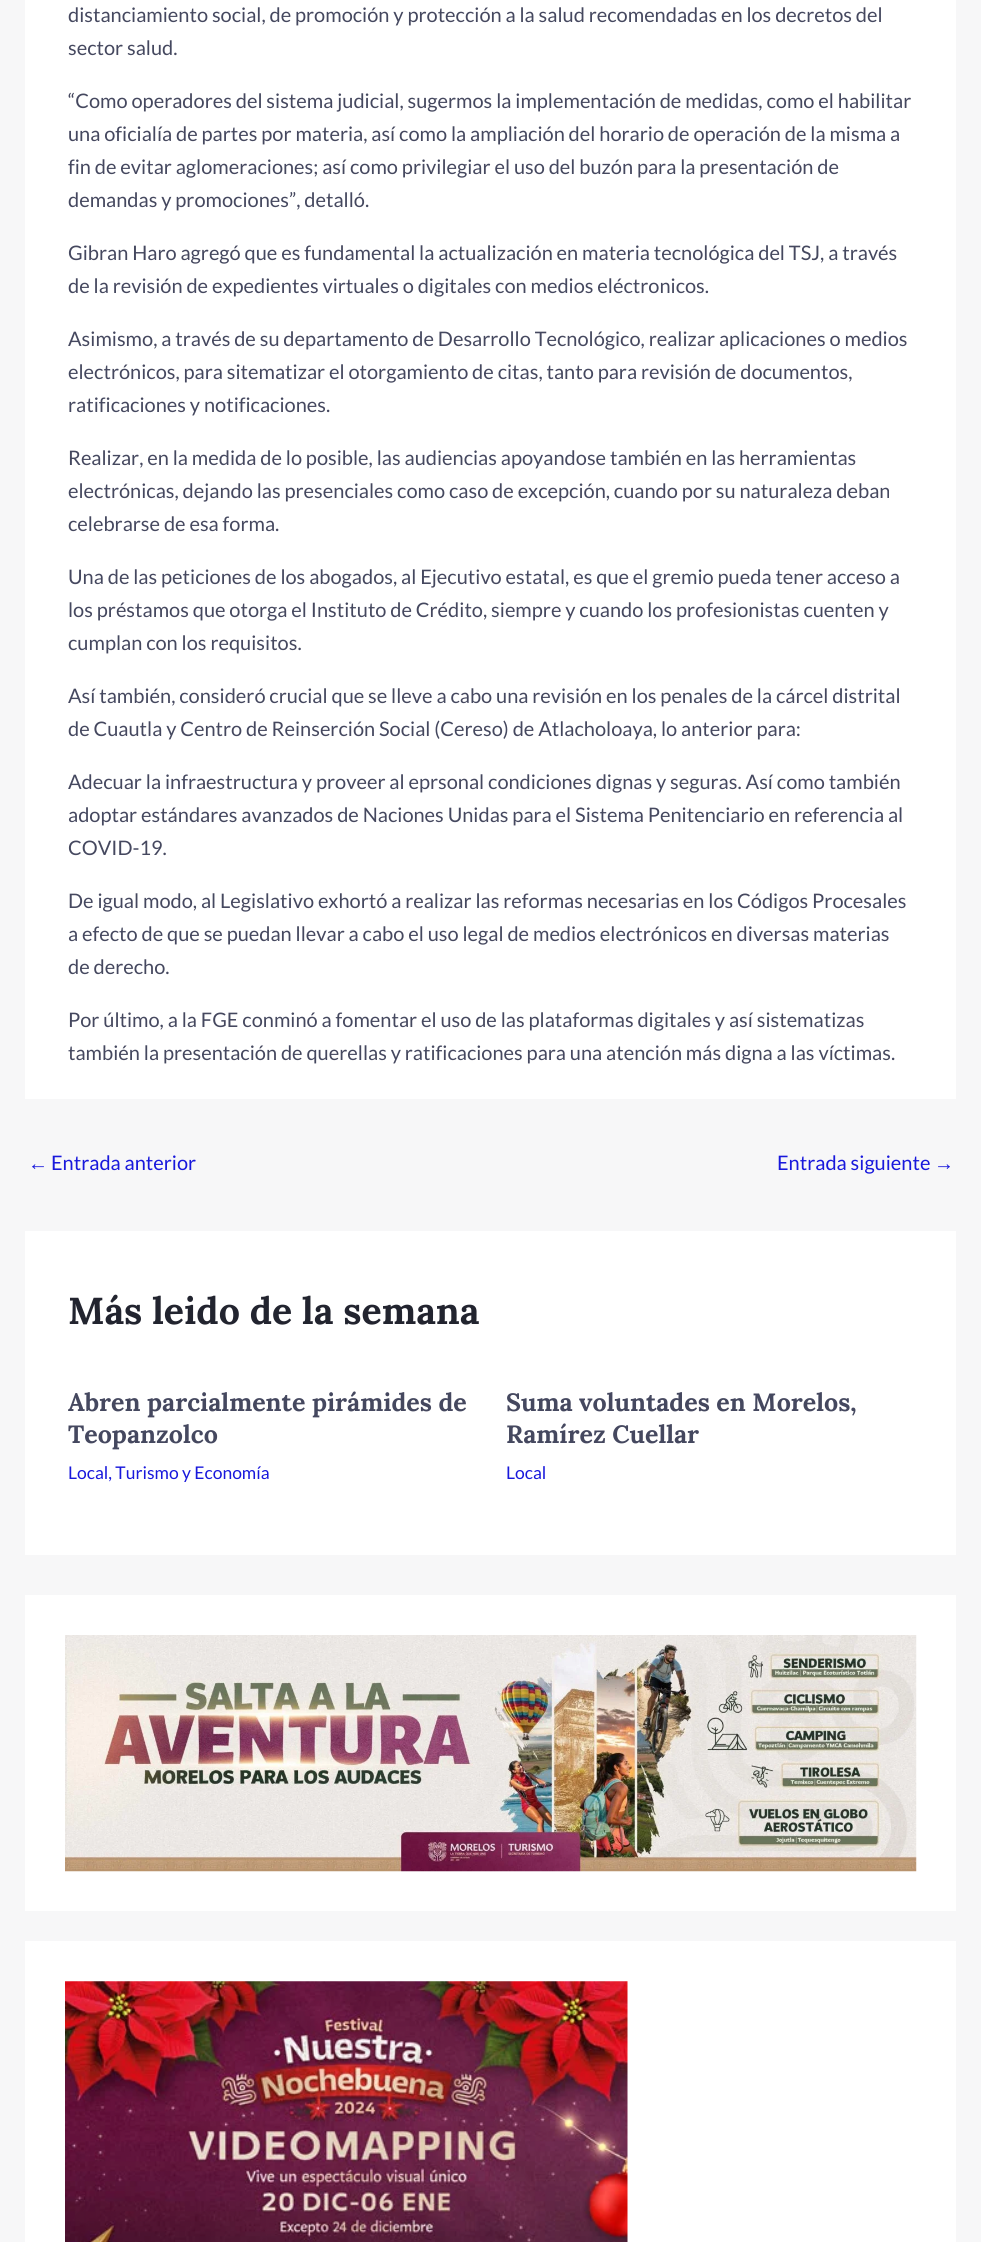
#include <cairo.h>
#include <math.h>
#include <stddef.h>

static cairo_t *c;
static void C(unsigned color){cairo_set_source_rgb(c, (color >> 16) / 255.0, (color >> 8 & 255) / 255.0, (color & 255) / 255.0);}
static void F(const char *family, double size, int italic, int bold){cairo_select_font_face(c, family, italic ? CAIRO_FONT_SLANT_ITALIC : CAIRO_FONT_SLANT_NORMAL,bold ? CAIRO_FONT_WEIGHT_BOLD : CAIRO_FONT_WEIGHT_NORMAL);cairo_set_font_size(c, size);}
static void T(double x, double y, const char *s){cairo_move_to(c, x, y);cairo_show_text(c, s);}
static void R(double x, double y, double w, double h){cairo_rectangle(c, x, y, w, h);cairo_fill(c);}
static void I(const char *path, double x, double y, double w, double h){cairo_surface_t *image = cairo_image_surface_create_from_png(path);cairo_save(c);cairo_set_source_surface(c, image, x, y);cairo_rectangle(c, x, y, w, h);cairo_fill(c);cairo_restore(c);cairo_surface_destroy(image);}
int main(void) {
cairo_surface_t *surface = cairo_image_surface_create(CAIRO_FORMAT_RGB24, 981, 2242);
c = cairo_create(surface);
cairo_font_options_t *options = cairo_font_options_create();
cairo_font_options_set_hint_metrics(options, CAIRO_HINT_METRICS_OFF);
cairo_font_options_set_hint_style(options, CAIRO_HINT_STYLE_NONE);
cairo_set_font_options(c, options);
cairo_set_miter_limit(c, 4);
C(0xf7f7f8);
cairo_paint(c);
C(0xffffff);
R(25,0,931,1099);
F("Lato",20,0,0);
C(0x45485f);
T(68,22,"distanciamiento social, de promoción y protección a la salud recomendadas en los decretos del");
T(68,55,"sector salud.");
T(68,108,"“Como operadores del sistema judicial, sugermos la implementación de medidas, como el habilitar");
T(68,141,"una oficialía de partes por materia, así como la ampliación del horario de operación de la misma a");
T(68,174,"fin de evitar aglomeraciones; así como privilegiar el uso del buzón para la presentación de");
T(68,207,"demandas y promociones”, detalló.");
T(68,260,"Gibran Haro agregó que es fundamental la actualización en materia tecnológica del TSJ, a través");
T(68,293,"de la revisión de expedientes virtuales o digitales con medios eléctronicos.");
T(68,346,"Asimismo, a través de su departamento de Desarrollo Tecnológico, realizar aplicaciones o medios");
T(68,379,"electrónicos, para sitematizar el otorgamiento de citas, tanto para revisión de documentos,");
T(68,412,"ratificaciones y notificaciones.");
T(68,465,"Realizar, en la medida de lo posible, las audiencias apoyandose también en las herramientas");
T(68,498,"electrónicas, dejando las presenciales como caso de excepción, cuando por su naturaleza deban");
T(68,531,"celebrarse de esa forma.");
T(68,584,"Una de las peticiones de los abogados, al Ejecutivo estatal, es que el gremio pueda tener acceso a");
T(68,617,"los préstamos que otorga el Instituto de Crédito, siempre y cuando los profesionistas cuenten y");
T(68,650,"cumplan con los requisitos.");
T(68,703,"Así también, consideró crucial que se lleve a cabo una revisión en los penales de la cárcel distrital");
T(68,736,"de Cuautla y Centro de Reinserción Social (Cereso) de Atlacholoaya, lo anterior para:");
T(68,789,"Adecuar la infraestructura y proveer al eprsonal condiciones dignas y seguras. Así como también");
T(68,822,"adoptar estándares avanzados de Naciones Unidas para el Sistema Penitenciario en referencia al");
T(68,855,"COVID-19.");
T(68,908,"De igual modo, al Legislativo exhortó a realizar las reformas necesarias en los Códigos Procesales");
T(68,941,"a efecto de que se puedan llevar a cabo el uso legal de medios electrónicos en diversas materias");
T(68,974,"de derecho.");
T(68,1027,"Por último, a la FGE conminó a fomentar el uso de las plataformas digitales y así sistematizas");
T(68,1060,"también la presentación de querellas y ratificaciones para una atención más digna a las víctimas.");
F("Liberation Sans",20,0,0);
C(0x1818dc);
T(28,1170,"←");
F("Lato",20,0,0);
T(51,1170,"Entrada anterior");
T(777,1170,"Entrada siguiente");
F("Liberation Sans",20,0,0);
T(934,1170,"→");
C(0xffffff);
R(25,1231,931,324);
F("Lora",37.5,0,1);
C(0x22242f);
T(68,1324,"Más leido de la semana");
F("Lora",25,0,1);
C(0x45485f);
T(68,1411,"Abren parcialmente pirámides de");
T(68,1443,"Teopanzolco");
F("Lato",17.5,0,0);
C(0x1818dc);
T(68,1479,"Local, Turismo y Economía");
F("Lora",25,0,1);
C(0x45485f);
T(506,1411,"Suma voluntades en Morelos,");
T(506,1443,"Ramírez Cuellar");
F("Lato",17.5,0,0);
C(0x1818dc);
T(506,1479,"Local");
C(0xffffff);
R(25,1595,931,316);
I("1.png",65,1635,852,237);
R(25,1941,931,301);
I("2.png",65,1981,563,261);
cairo_surface_write_to_png(surface, "o.png");
cairo_font_options_destroy(options);
cairo_destroy(c);
cairo_surface_destroy(surface);
return 0;
}
